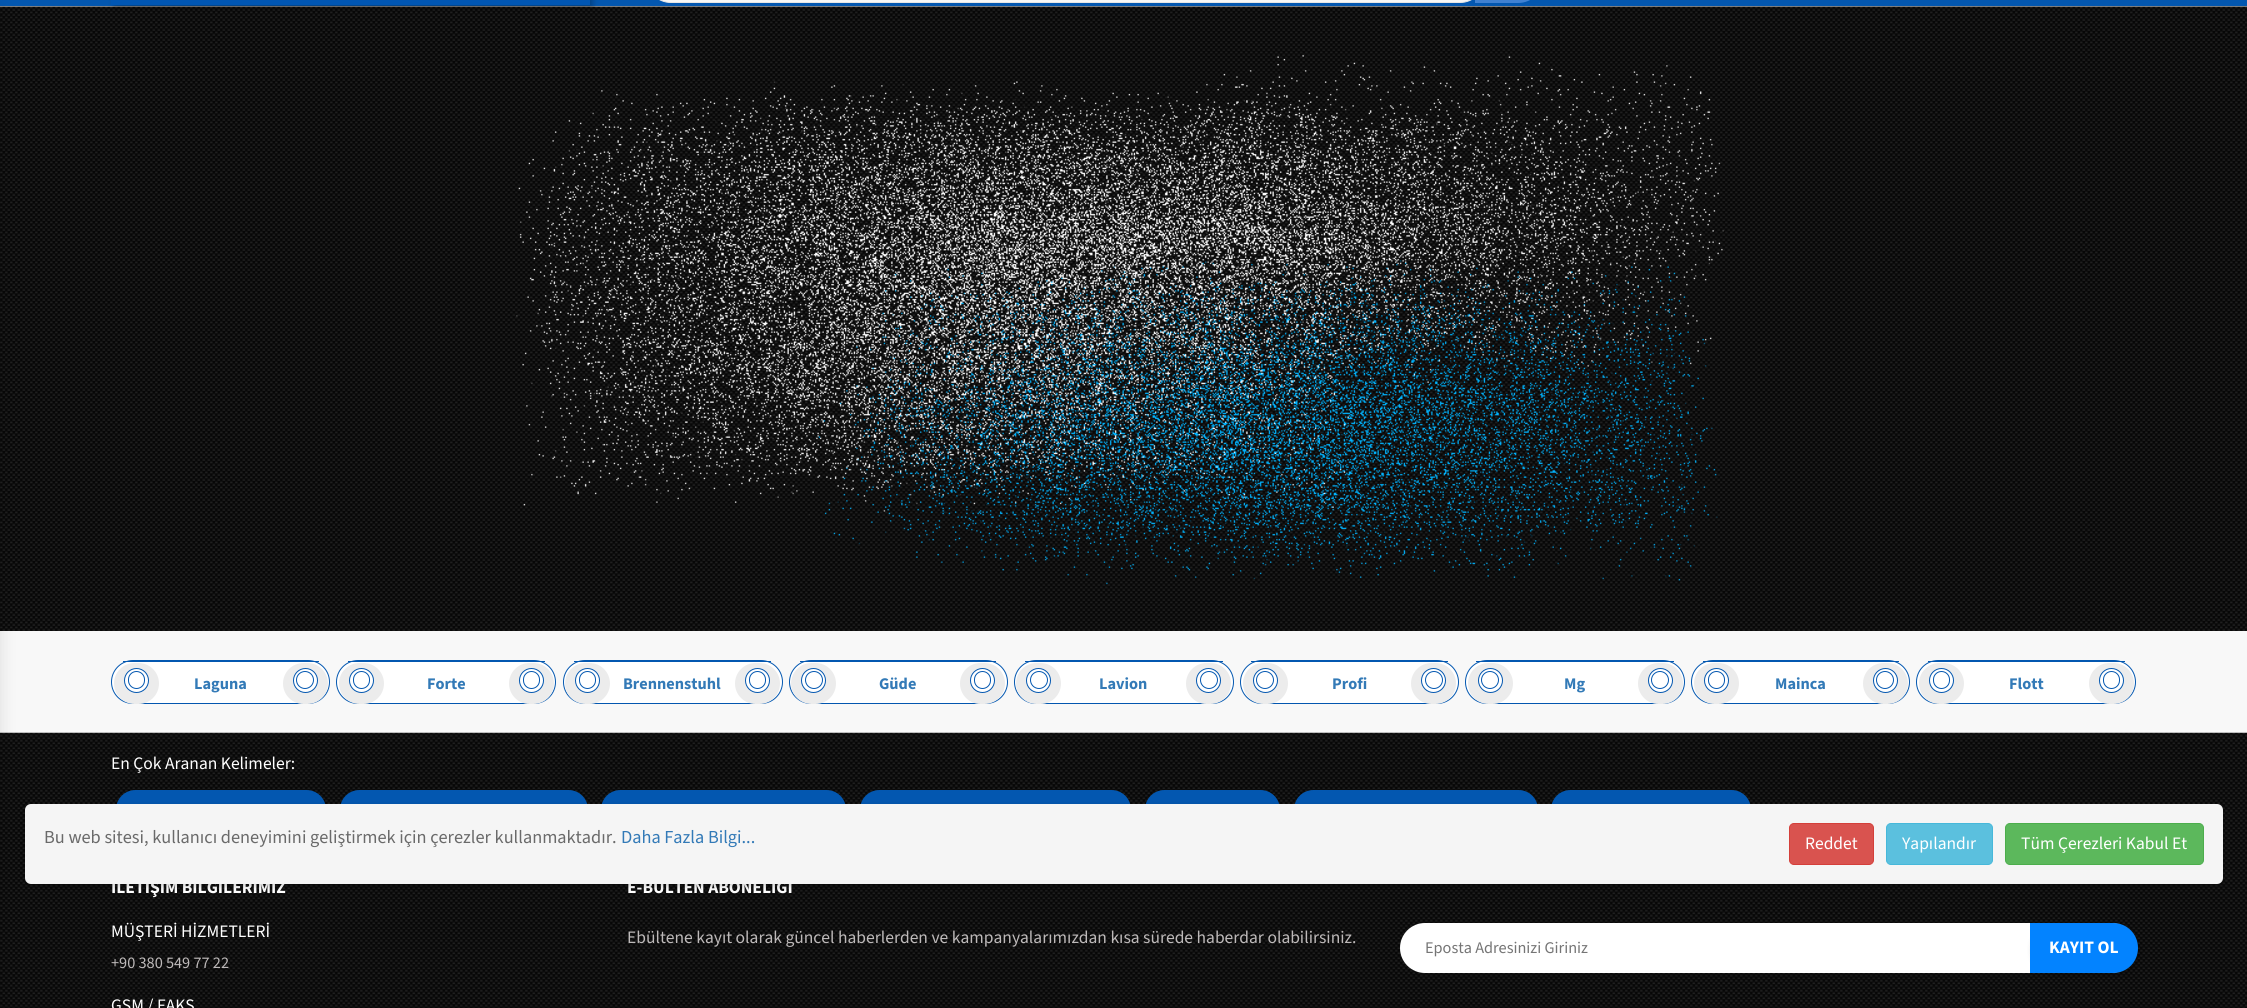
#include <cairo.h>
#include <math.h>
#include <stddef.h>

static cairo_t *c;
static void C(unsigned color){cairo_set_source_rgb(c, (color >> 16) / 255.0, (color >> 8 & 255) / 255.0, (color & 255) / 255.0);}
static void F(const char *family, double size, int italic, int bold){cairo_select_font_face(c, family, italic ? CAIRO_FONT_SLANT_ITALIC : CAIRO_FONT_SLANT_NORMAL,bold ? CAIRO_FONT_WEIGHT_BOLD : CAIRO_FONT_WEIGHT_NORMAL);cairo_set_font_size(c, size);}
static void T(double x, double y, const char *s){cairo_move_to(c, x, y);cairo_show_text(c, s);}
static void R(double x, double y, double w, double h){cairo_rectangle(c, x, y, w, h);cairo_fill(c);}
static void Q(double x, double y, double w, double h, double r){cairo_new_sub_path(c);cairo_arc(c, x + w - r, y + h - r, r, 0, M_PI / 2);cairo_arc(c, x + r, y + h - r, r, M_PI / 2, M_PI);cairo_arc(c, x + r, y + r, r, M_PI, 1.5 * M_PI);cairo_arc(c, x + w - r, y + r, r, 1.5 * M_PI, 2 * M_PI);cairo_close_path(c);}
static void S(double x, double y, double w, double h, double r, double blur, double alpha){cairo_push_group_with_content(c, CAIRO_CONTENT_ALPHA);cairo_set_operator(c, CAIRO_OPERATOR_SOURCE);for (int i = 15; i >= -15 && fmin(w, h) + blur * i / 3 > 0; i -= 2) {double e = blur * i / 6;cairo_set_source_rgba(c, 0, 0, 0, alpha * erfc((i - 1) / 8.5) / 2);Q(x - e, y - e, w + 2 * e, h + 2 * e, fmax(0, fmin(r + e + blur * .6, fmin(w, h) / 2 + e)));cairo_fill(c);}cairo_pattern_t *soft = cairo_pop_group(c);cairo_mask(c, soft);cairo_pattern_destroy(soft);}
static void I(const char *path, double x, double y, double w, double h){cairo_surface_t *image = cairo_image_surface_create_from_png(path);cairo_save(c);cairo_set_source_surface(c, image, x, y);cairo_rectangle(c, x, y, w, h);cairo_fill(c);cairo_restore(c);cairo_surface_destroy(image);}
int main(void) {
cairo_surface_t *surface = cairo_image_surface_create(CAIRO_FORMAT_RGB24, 2247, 1008);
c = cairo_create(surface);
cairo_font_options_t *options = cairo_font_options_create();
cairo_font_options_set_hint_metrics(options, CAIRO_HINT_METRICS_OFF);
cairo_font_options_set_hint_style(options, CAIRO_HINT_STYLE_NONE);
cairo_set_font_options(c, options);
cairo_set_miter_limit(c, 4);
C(0x0357b0);
cairo_paint(c);
C(0xf8f8f8);
Q(646.5,-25.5,838,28,24.5);
cairo_fill_preserve(c);
C(0xe6e6e6);
cairo_set_line_width(c,1);
cairo_stroke(c);
C(0x4081d1);
cairo_new_path(c);
cairo_move_to(c,1475,-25);
cairo_line_to(c,1518,-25);
cairo_curve_to(c,1532,-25,1543,-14,1543,0);
cairo_line_to(c,1543,-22);
cairo_curve_to(c,1543,-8,1532,3,1518,3);
cairo_line_to(c,1475,3);
cairo_close_path(c);
cairo_fill(c);
C(0xeceef0);
R(0,6,2247,1);
I("1.png",0,6,2247,625);
C(0x000000);
S(114,-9,479,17,0,3,.25);
C(0x0056b3);
R(111,0,479,5);
I("2.png",516,55,1208,530);
C(0xf8f8f8);
R(0,631,2247,102);
C(0xffffff);
Q(111.5,660.5,218,43,21.5);
cairo_fill_preserve(c);
C(0x0357b0);
cairo_stroke(c);
R(123,661,196,1);
C(0xececec);
Q(114,663,45,41,20.5);
cairo_fill(c);
C(0xffffff);
cairo_arc(c,136.5,680.5,12,0,2 * M_PI);
cairo_fill_preserve(c);
C(0x0357b0);
cairo_stroke(c);
Q(128.5,671.5,16,17,8);
cairo_stroke(c);
F("Source Sans 3",16.25,0,1);
C(0x337ab7);
T(194,689,"Laguna");
C(0xececec);
Q(283,663,45,41,20.5);
cairo_fill(c);
C(0xffffff);
cairo_arc(c,305.5,680.5,12,0,2 * M_PI);
cairo_fill_preserve(c);
C(0x0357b0);
cairo_stroke(c);
cairo_arc(c,305,680,8.5,0,2 * M_PI);
cairo_stroke(c);
C(0xffffff);
Q(336.5,660.5,219,43,21.5);
cairo_fill_preserve(c);
C(0x0357b0);
cairo_stroke(c);
R(348,661,197,1);
C(0xececec);
Q(339,663,45,41,20.5);
cairo_fill(c);
C(0xffffff);
cairo_arc(c,361.5,680.5,12,0,2 * M_PI);
cairo_fill_preserve(c);
C(0x0357b0);
cairo_stroke(c);
Q(353.5,671.5,16,17,8);
cairo_stroke(c);
C(0x337ab7);
T(427,689,"Forte");
C(0xececec);
Q(509,663,45,41,20.5);
cairo_fill(c);
C(0xffffff);
cairo_arc(c,531.5,680.5,12,0,2 * M_PI);
cairo_fill_preserve(c);
C(0x0357b0);
cairo_stroke(c);
Q(523.5,671.5,16,17,8);
cairo_stroke(c);
C(0xffffff);
Q(563.5,660.5,219,43,21.5);
cairo_fill_preserve(c);
C(0x0357b0);
cairo_stroke(c);
R(574,661,197,1);
C(0xececec);
Q(565,663,45,41,20.5);
cairo_fill(c);
C(0xffffff);
cairo_arc(c,587.5,680.5,12,0,2 * M_PI);
cairo_fill_preserve(c);
C(0x0357b0);
cairo_stroke(c);
Q(579.5,671.5,16,17,8);
cairo_stroke(c);
C(0x337ab7);
T(623,689,"Brennenstuhl");
C(0xececec);
Q(735,663,45,41,20.5);
cairo_fill(c);
C(0xffffff);
cairo_arc(c,757.5,680.5,12,0,2 * M_PI);
cairo_fill_preserve(c);
C(0x0357b0);
cairo_stroke(c);
Q(749.5,671.5,16,17,8);
cairo_stroke(c);
C(0xffffff);
Q(789.5,660.5,218,43,21.5);
cairo_fill_preserve(c);
C(0x0357b0);
cairo_stroke(c);
R(800,661,196,1);
C(0xececec);
Q(791,663,45,41,20.5);
cairo_fill(c);
C(0xffffff);
cairo_arc(c,813.5,680.5,12,0,2 * M_PI);
cairo_fill_preserve(c);
C(0x0357b0);
cairo_stroke(c);
cairo_arc(c,814,680,8.5,0,2 * M_PI);
cairo_stroke(c);
C(0x337ab7);
T(879,689,"Güde");
C(0xececec);
Q(960,663,45,41,20.5);
cairo_fill(c);
C(0xffffff);
cairo_arc(c,982.5,680.5,12,0,2 * M_PI);
cairo_fill_preserve(c);
C(0x0357b0);
cairo_stroke(c);
Q(974.5,671.5,16,17,8);
cairo_stroke(c);
C(0xffffff);
Q(1014.5,660.5,219,43,21.5);
cairo_fill_preserve(c);
C(0x0357b0);
cairo_stroke(c);
R(1025,661,198,1);
C(0xececec);
Q(1016,663,45,41,20.5);
cairo_fill(c);
C(0xffffff);
cairo_arc(c,1038.5,680.5,12,0,2 * M_PI);
cairo_fill_preserve(c);
C(0x0357b0);
cairo_stroke(c);
cairo_arc(c,1039,680,8.5,0,2 * M_PI);
cairo_stroke(c);
C(0x337ab7);
T(1099,689,"Lavion");
C(0xececec);
Q(1186,663,45,41,20.5);
cairo_fill(c);
C(0xffffff);
cairo_arc(c,1208.5,680.5,12,0,2 * M_PI);
cairo_fill_preserve(c);
C(0x0357b0);
cairo_stroke(c);
cairo_arc(c,1209,680,8.5,0,2 * M_PI);
cairo_stroke(c);
C(0xffffff);
Q(1240.5,660.5,218,43,21.5);
cairo_fill_preserve(c);
C(0x0357b0);
cairo_stroke(c);
R(1251,661,197,1);
C(0xececec);
Q(1243,663,45,41,20.5);
cairo_fill(c);
C(0xffffff);
cairo_arc(c,1265.5,680.5,12,0,2 * M_PI);
cairo_fill_preserve(c);
C(0x0357b0);
cairo_stroke(c);
cairo_arc(c,1265,680,8.5,0,2 * M_PI);
cairo_stroke(c);
C(0x337ab7);
T(1332,689,"Profi");
C(0xececec);
Q(1411,663,45,41,20.5);
cairo_fill(c);
C(0xffffff);
cairo_arc(c,1433.5,680.5,12,0,2 * M_PI);
cairo_fill_preserve(c);
C(0x0357b0);
cairo_stroke(c);
cairo_arc(c,1434,680,8.5,0,2 * M_PI);
cairo_stroke(c);
C(0xffffff);
Q(1465.5,660.5,219,43,21.5);
cairo_fill_preserve(c);
C(0x0357b0);
cairo_stroke(c);
R(1476,661,198,1);
C(0xececec);
Q(1468,663,45,41,20.5);
cairo_fill(c);
C(0xffffff);
cairo_arc(c,1490.5,680.5,12,0,2 * M_PI);
cairo_fill_preserve(c);
C(0x0357b0);
cairo_stroke(c);
cairo_arc(c,1490,680,8.5,0,2 * M_PI);
cairo_stroke(c);
C(0x337ab7);
T(1564,689,"Mg");
C(0xececec);
Q(1638,663,45,41,20.5);
cairo_fill(c);
C(0xffffff);
cairo_arc(c,1660.5,680.5,12,0,2 * M_PI);
cairo_fill_preserve(c);
C(0x0357b0);
cairo_stroke(c);
cairo_arc(c,1660,680,8.5,0,2 * M_PI);
cairo_stroke(c);
C(0xffffff);
Q(1691.5,660.5,218,43,21.5);
cairo_fill_preserve(c);
C(0x0357b0);
cairo_stroke(c);
R(1703,661,196,1);
C(0xececec);
Q(1694,663,45,41,20.5);
cairo_fill(c);
C(0xffffff);
cairo_arc(c,1716.5,680.5,12,0,2 * M_PI);
cairo_fill_preserve(c);
C(0x0357b0);
cairo_stroke(c);
Q(1708.5,671.5,16,17,8);
cairo_stroke(c);
C(0x337ab7);
T(1775,689,"Mainca");
C(0xececec);
Q(1863,663,45,41,20.5);
cairo_fill(c);
C(0xffffff);
cairo_arc(c,1885.5,680.5,12,0,2 * M_PI);
cairo_fill_preserve(c);
C(0x0357b0);
cairo_stroke(c);
cairo_arc(c,1885,680,8.5,0,2 * M_PI);
cairo_stroke(c);
C(0xffffff);
Q(1916.5,660.5,219,43,21.5);
cairo_fill_preserve(c);
C(0x0357b0);
cairo_stroke(c);
R(1928,661,197,1);
C(0xececec);
Q(1919,663,45,41,20.5);
cairo_fill(c);
C(0xffffff);
cairo_arc(c,1941.5,680.5,12,0,2 * M_PI);
cairo_fill_preserve(c);
C(0x0357b0);
cairo_stroke(c);
Q(1933.5,671.5,16,17,8);
cairo_stroke(c);
C(0x337ab7);
T(2009,689,"Flott");
C(0xececec);
Q(2089,663,45,41,20.5);
cairo_fill(c);
C(0xffffff);
cairo_arc(c,2111.5,680.5,12,0,2 * M_PI);
cairo_fill_preserve(c);
C(0x0357b0);
cairo_stroke(c);
Q(2103.5,671.5,16,17,8);
cairo_stroke(c);
I("3.png",0,732,2247,276);
Q(116,790,210,39,19.5);
cairo_fill(c);
Q(340,790,248,39,19.5);
cairo_fill(c);
Q(601,790,245,39,19.5);
cairo_fill(c);
Q(860,790,271,39,19.5);
cairo_fill(c);
Q(1145,790,135,39,19.5);
cairo_fill(c);
Q(1294,790,244,39,19.5);
cairo_fill(c);
Q(1551,790,200,39,19.5);
cairo_fill(c);
F("Source Sans 3",17.5,0,1);
C(0xffffff);
T(111,893,"İLETİŞİM BİLGİLERİMİZ");
T(627,893,"E-BÜLTEN ABONELİĞİ");
C(0x000000);
S(25,806,2198,80,6,3,.2);
C(0xf5f5f5);
Q(25,804,2198,80,6);
cairo_fill(c);
C(0x000000);
S(-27,10,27,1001,0,9,.11);
F("Source Sans 3",17.5,0,0);
C(0xffffff);
T(111,769,"En Çok Aranan Kelimeler:");
T(111,937,"MÜŞTERİ HİZMETLERİ");
F("Source Sans 3",16.25,0,0);
C(0xbebaba);
T(111,968,"+90 380 549 77 22");
F("Source Sans 3",17.5,0,0);
C(0xffffff);
T(111,1011,"GSM / FAKS");
C(0xbebaba);
T(627,943,"Ebültene kayıt olarak güncel haberlerden ve kampanyalarımızdan kısa sürede haberdar olabilirsiniz.");
C(0xffffff);
Q(1400,923,736,50,25);
cairo_fill(c);
F("Source Sans 3",16.25,0,0);
C(0x757575);
T(1425,953,"Eposta Adresinizi Giriniz");
C(0x000000);
S(2033,925,107,50,25,3,.25);
C(0x0383ff);
cairo_new_path(c);
cairo_move_to(c,2030,923);
cairo_line_to(c,2113,923);
cairo_curve_to(c,2127,923,2138,934,2138,948);
cairo_curve_to(c,2138,962,2127,973,2113,973);
cairo_line_to(c,2030,973);
cairo_close_path(c);
cairo_fill(c);
F("Source Sans 3",17.5,0,1);
C(0xffffff);
T(2049,953,"KAYIT OL");
F("Source Sans 3",18.3,0,0);
C(0x6a6a6a);
T(44,843,"Bu web sitesi, kullanıcı deneyimini geliştirmek için çerezler kullanmaktadır.");
C(0x337ab7);
T(621,843,"Daha Fazla Bilgi...");
C(0xd9534f);
Q(1789.5,823.5,84,41,4.5);
cairo_fill_preserve(c);
C(0xd43f3a);
cairo_stroke(c);
F("Source Sans 3",17.5,0,0);
C(0xffffff);
T(1805,849,"Reddet");
C(0x5bc0de);
Q(1886.5,823.5,106,41,4.5);
cairo_fill_preserve(c);
C(0x46b8da);
cairo_stroke(c);
C(0xffffff);
T(1902,849,"Yapılandır");
C(0x5cb85c);
Q(2005.5,823.5,198,41,4.5);
cairo_fill_preserve(c);
C(0x4cae4c);
cairo_stroke(c);
C(0xffffff);
T(2021,849,"Tüm Çerezleri Kabul Et");
cairo_surface_write_to_png(surface, "o.png");
cairo_font_options_destroy(options);
cairo_destroy(c);
cairo_surface_destroy(surface);
return 0;
}
